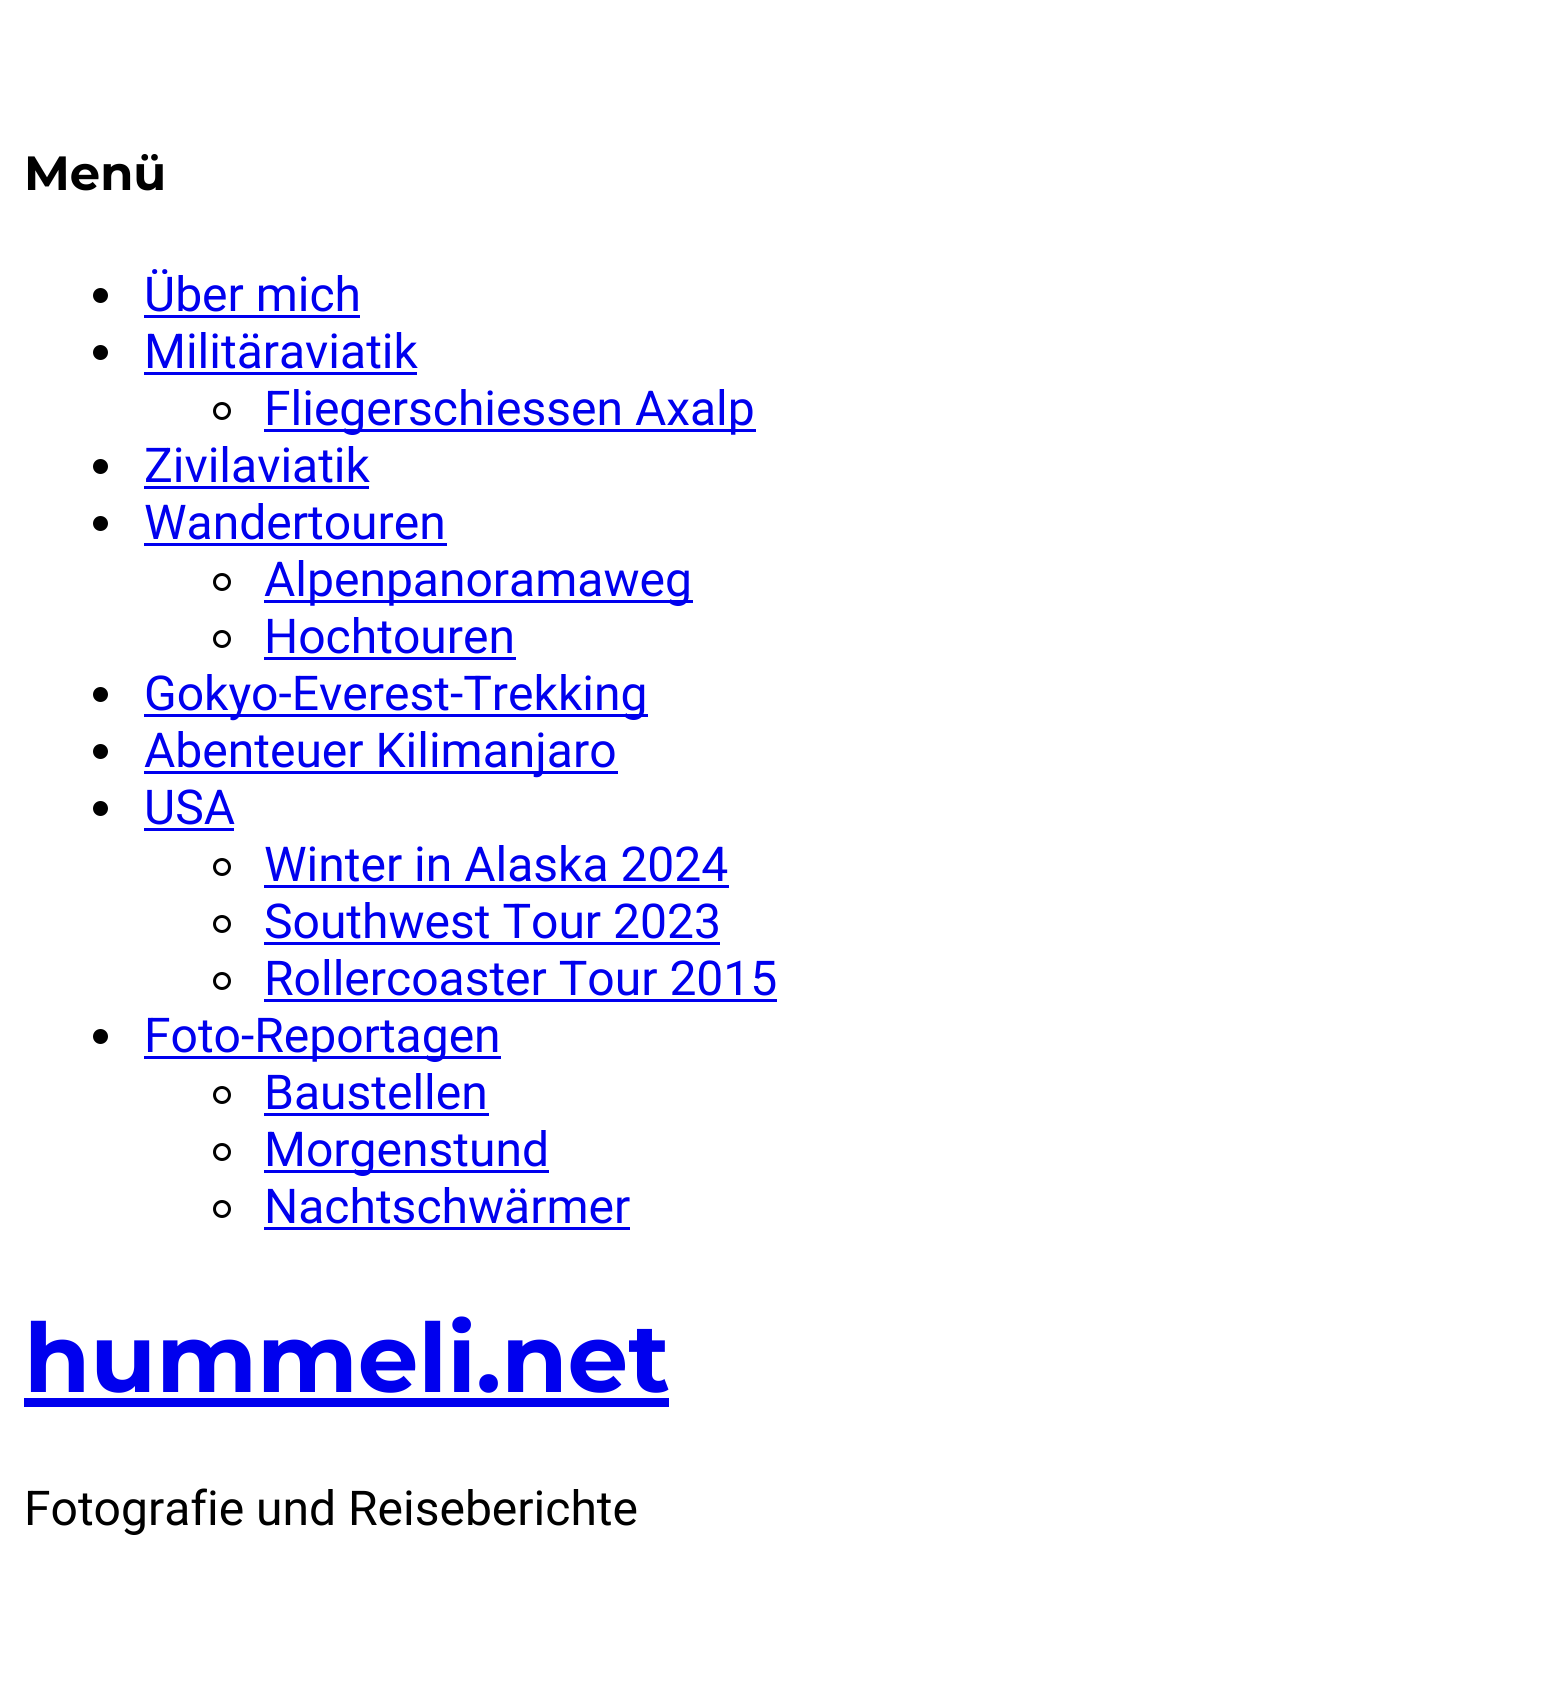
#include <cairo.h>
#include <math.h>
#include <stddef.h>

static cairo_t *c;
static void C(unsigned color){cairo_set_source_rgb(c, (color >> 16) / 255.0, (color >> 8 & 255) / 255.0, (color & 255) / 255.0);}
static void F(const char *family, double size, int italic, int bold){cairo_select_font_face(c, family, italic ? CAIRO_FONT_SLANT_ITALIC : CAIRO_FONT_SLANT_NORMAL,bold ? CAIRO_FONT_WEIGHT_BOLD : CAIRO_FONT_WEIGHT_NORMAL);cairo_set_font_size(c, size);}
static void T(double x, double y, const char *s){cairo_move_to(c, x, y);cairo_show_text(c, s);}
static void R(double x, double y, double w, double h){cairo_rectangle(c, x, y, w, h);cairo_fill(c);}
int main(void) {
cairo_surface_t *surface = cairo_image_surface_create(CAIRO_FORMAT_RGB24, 1562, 1686);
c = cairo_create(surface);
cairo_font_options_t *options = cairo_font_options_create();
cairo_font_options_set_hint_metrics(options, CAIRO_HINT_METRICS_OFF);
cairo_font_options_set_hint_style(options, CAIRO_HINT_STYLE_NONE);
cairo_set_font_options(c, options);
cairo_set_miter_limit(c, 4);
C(0xffffff);
cairo_paint(c);
F("Montserrat",48,0,1);
C(0x000000);
T(24,190,"Menü");
cairo_new_path(c);
cairo_arc(c,100.5,295.5,7.5,0,2 * M_PI);
cairo_fill(c);
F("Roboto",48,0,0);
C(0x0000ee);
T(144,311,"Über mich");
R(144,315,216,3);
C(0x000000);
cairo_new_path(c);
cairo_arc(c,100.5,352.5,7.5,0,2 * M_PI);
cairo_fill(c);
C(0x0000ee);
T(144,368,"Militäraviatik");
R(144,372,273,3);
cairo_new_path(c);
cairo_arc(c,222,411,7.5,0,2 * M_PI);
C(0x000000);
cairo_set_line_width(c,3);
cairo_stroke(c);
C(0x0000ee);
R(264,429,492,3);
T(264,425,"Fliegerschiessen Axalp");
C(0x000000);
cairo_new_path(c);
cairo_arc(c,100.5,466.5,7.5,0,2 * M_PI);
cairo_fill(c);
C(0x0000ee);
T(144,482,"Zivilaviatik");
R(144,486,225,3);
C(0x000000);
cairo_new_path(c);
cairo_arc(c,100.5,523.5,7.5,0,2 * M_PI);
cairo_fill(c);
C(0x0000ee);
T(144,539,"Wandertouren");
R(144,543,303,3);
cairo_new_path(c);
cairo_arc(c,222,582,7.5,0,2 * M_PI);
C(0x000000);
cairo_stroke(c);
C(0x0000ee);
R(264,600,429,3);
T(264,596,"Alpenpanoramaweg");
cairo_new_path(c);
cairo_arc(c,222,639,7.5,0,2 * M_PI);
C(0x000000);
cairo_stroke(c);
C(0x0000ee);
T(264,653,"Hochtouren");
R(264,657,252,3);
C(0x000000);
cairo_new_path(c);
cairo_arc(c,100.5,694.5,7.5,0,2 * M_PI);
cairo_fill(c);
C(0x0000ee);
R(144,714,504,3);
T(144,710,"Gokyo-Everest-Trekking");
C(0x000000);
cairo_new_path(c);
cairo_arc(c,100.5,751.5,7.5,0,2 * M_PI);
cairo_fill(c);
C(0x0000ee);
R(144,771,474,3);
T(144,767,"Abenteuer Kilimanjaro");
C(0x000000);
cairo_new_path(c);
cairo_arc(c,100.5,808.5,7.5,0,2 * M_PI);
cairo_fill(c);
C(0x0000ee);
T(144,824,"USA");
R(144,828,90,3);
cairo_new_path(c);
cairo_arc(c,222,867,7.5,0,2 * M_PI);
C(0x000000);
cairo_stroke(c);
C(0x0000ee);
T(264,881,"Winter in Alaska 2024");
R(264,885,465,3);
cairo_new_path(c);
cairo_arc(c,222,924,7.5,0,2 * M_PI);
C(0x000000);
cairo_stroke(c);
C(0x0000ee);
T(264,938,"Southwest Tour 2023");
R(264,942,456,3);
cairo_new_path(c);
cairo_arc(c,222,981,7.5,0,2 * M_PI);
C(0x000000);
cairo_stroke(c);
C(0x0000ee);
T(264,995,"Rollercoaster Tour 2015");
R(264,999,513,3);
C(0x000000);
cairo_new_path(c);
cairo_arc(c,100.5,1036.5,7.5,0,2 * M_PI);
cairo_fill(c);
C(0x0000ee);
R(144,1056,357,3);
T(144,1052,"Foto-Reportagen");
cairo_new_path(c);
cairo_arc(c,222,1095,7.5,0,2 * M_PI);
C(0x000000);
cairo_stroke(c);
C(0x0000ee);
T(264,1109,"Baustellen");
R(264,1113,225,3);
cairo_new_path(c);
cairo_arc(c,222,1152,7.5,0,2 * M_PI);
C(0x000000);
cairo_stroke(c);
C(0x0000ee);
R(264,1170,285,3);
T(264,1166,"Morgenstund");
cairo_new_path(c);
cairo_arc(c,222,1209,7.5,0,2 * M_PI);
C(0x000000);
cairo_stroke(c);
C(0x0000ee);
T(264,1223,"Nachtschwärmer");
R(264,1227,366,3);
F("Montserrat",96,0,1);
T(24,1392,"hummeli.net");
R(24,1398,645,9);
F("Roboto",48,0,0);
C(0x000000);
T(24,1525,"Fotografie und Reiseberichte");
cairo_surface_write_to_png(surface, "o.png");
cairo_font_options_destroy(options);
cairo_destroy(c);
cairo_surface_destroy(surface);
return 0;
}
